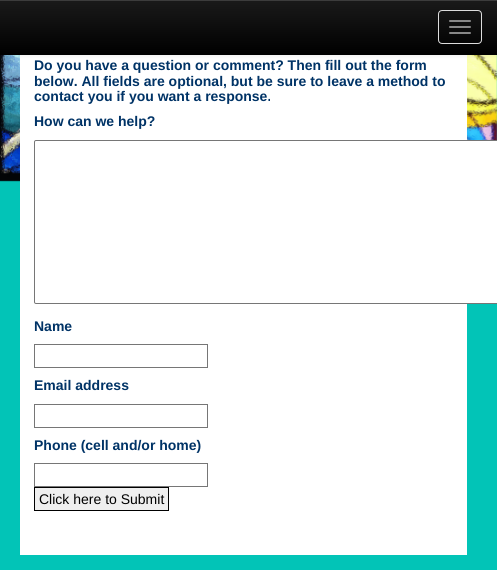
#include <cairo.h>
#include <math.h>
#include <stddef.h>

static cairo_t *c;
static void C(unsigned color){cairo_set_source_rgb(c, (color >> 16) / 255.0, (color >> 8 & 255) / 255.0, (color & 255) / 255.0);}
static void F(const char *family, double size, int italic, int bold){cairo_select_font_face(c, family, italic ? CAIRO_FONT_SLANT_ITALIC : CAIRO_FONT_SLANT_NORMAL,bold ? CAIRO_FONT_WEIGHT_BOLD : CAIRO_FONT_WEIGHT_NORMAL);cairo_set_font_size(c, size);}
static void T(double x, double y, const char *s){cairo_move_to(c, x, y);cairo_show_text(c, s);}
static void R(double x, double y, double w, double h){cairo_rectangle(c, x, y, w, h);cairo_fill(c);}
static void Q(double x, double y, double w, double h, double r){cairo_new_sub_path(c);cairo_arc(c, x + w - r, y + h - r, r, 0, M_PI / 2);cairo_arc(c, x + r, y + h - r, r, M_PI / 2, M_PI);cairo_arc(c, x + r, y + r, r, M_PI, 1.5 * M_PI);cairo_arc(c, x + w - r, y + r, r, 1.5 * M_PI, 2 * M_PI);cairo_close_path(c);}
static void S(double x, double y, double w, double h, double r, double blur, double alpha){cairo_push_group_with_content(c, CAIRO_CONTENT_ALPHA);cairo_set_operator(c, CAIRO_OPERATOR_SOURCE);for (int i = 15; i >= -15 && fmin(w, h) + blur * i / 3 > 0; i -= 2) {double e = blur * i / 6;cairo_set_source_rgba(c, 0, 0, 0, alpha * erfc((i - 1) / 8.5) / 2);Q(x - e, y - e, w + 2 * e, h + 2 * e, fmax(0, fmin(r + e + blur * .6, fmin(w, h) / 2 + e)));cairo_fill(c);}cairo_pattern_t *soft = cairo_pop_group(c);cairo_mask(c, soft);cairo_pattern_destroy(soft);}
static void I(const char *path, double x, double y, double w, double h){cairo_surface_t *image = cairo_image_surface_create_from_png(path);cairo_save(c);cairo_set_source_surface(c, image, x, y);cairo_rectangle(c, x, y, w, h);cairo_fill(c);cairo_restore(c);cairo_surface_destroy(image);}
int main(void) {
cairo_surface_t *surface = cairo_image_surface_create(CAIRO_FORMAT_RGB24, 497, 570);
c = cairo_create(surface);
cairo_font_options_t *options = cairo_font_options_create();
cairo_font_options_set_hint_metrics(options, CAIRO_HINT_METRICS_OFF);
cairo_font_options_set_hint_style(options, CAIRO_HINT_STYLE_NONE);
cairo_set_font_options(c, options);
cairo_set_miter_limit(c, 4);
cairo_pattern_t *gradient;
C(0x02c4b7);
cairo_paint(c);
I("1.png",0,55,497,127);
C(0xffffff);
R(20,55,447,500);
C(0x000000);
S(0,1,497,55,0,2.5,.07);
C(0x000000);
R(0,54,497,1);
gradient = cairo_pattern_create_linear(249,0,249,54);
cairo_pattern_add_color_stop_rgba(gradient,0,0.102,0.102,0.102,1);
cairo_pattern_add_color_stop_rgba(gradient,1,0,0,0,1);
cairo_set_source(c,gradient);
cairo_pattern_destroy(gradient);
R(0,1,497,53);
C(0x3c3c3c);
R(0,0,497,1);
Q(438.5,10.5,43,33,3.5);
C(0xdddddd);
cairo_set_line_width(c,1);
cairo_stroke(c);
C(0x888888);
Q(449,20,22,2,1);
cairo_fill(c);
Q(449,26,22,2,1);
cairo_fill(c);
Q(449,32,22,2,1);
cairo_fill(c);
F("Liberation Sans",14,0,1);
C(0x003366);
T(34,70,"Do you have a question or comment? Then fill out the form");
T(34,86,"below. All fields are optional, but be sure to leave a method to");
T(34,101,"contact you if you want a response.");
T(34,126,"How can we help?");
C(0xffffff);
Q(34.5,140.5,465,163,1.5);
cairo_fill_preserve(c);
C(0x767676);
cairo_stroke(c);
C(0x003366);
T(34,331,"Name");
cairo_rectangle(c,34.5,344.5,173,23);
C(0x767676);
cairo_stroke(c);
C(0x003366);
T(34,390,"Email address");
cairo_rectangle(c,34.5,404.5,173,23);
C(0x767676);
cairo_stroke(c);
C(0x003366);
T(34,450,"Phone (cell and/or home)");
cairo_rectangle(c,34.5,463.5,173,23);
C(0x767676);
cairo_stroke(c);
C(0xefefef);
cairo_rectangle(c,34.5,487.5,134,23);
cairo_fill_preserve(c);
C(0x000000);
cairo_stroke(c);
F("Liberation Sans",14,0,0);
T(39,504,"Click here to Submit");
cairo_surface_write_to_png(surface, "o.png");
cairo_font_options_destroy(options);
cairo_destroy(c);
cairo_surface_destroy(surface);
return 0;
}
